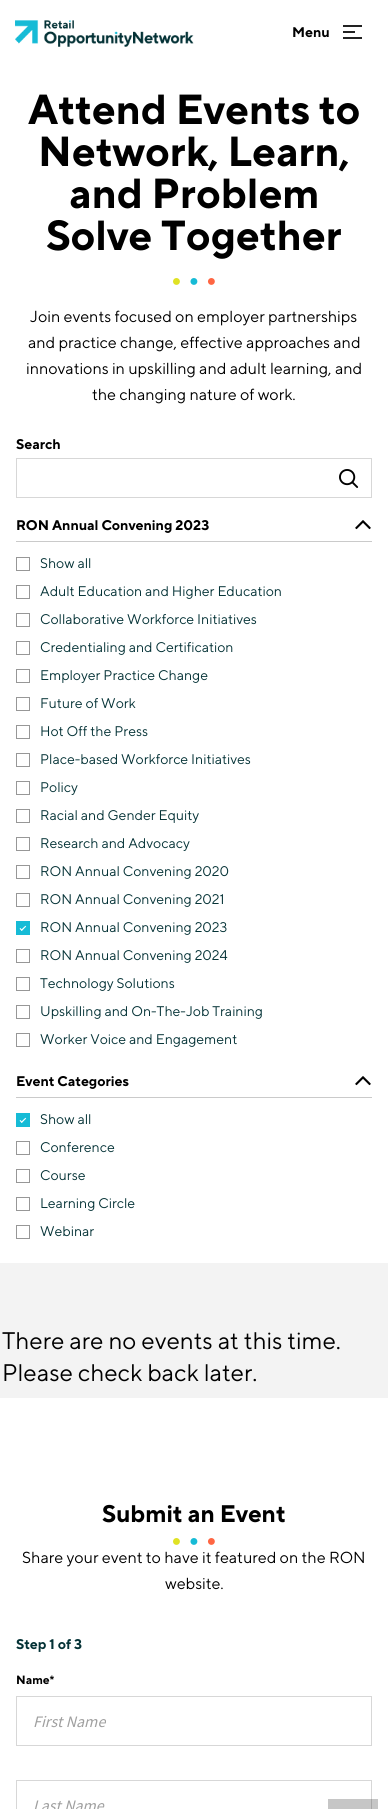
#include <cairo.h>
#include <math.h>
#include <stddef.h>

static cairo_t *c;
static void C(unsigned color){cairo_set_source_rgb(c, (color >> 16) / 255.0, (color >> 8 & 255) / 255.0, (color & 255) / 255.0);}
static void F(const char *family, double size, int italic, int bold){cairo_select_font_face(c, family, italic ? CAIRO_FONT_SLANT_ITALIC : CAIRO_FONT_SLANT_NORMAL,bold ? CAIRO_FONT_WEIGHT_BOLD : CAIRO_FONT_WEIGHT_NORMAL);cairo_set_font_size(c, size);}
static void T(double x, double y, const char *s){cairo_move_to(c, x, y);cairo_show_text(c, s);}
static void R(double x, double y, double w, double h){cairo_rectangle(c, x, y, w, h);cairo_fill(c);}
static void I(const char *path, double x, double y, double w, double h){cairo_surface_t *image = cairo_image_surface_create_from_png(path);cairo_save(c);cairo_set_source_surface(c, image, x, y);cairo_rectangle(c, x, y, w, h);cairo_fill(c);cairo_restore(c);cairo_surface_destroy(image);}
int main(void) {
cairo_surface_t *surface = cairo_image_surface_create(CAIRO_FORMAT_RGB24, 388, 1809);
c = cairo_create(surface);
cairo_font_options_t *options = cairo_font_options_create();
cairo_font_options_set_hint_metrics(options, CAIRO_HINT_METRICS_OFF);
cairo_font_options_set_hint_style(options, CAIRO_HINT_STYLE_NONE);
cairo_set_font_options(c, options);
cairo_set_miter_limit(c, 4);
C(0xffffff);
cairo_paint(c);
I("1.png",15,20,179,27);
F("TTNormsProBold",14,0,0);
C(0x000000);
T(292,37,"Menu");
C(0x222222);
R(343,31,12,2);
R(343,25,19,2);
R(343,37,19,2);
F("TTNormsProBold",42,0,0);
C(0x000000);
T(28,124,"Attend Events to");
T(38,166,"Network, Learn,");
T(69,208,"and Problem");
T(46,250,"Solve Together");
I("2.png",173,278,42,7);
F("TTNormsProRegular",16,0,0);
T(30,322,"Join events focused on employer partnerships");
T(28,348,"and practice change, effective approaches and");
T(26,374,"innovations in upskilling and adult learning, and");
T(92,400,"the changing nature of work.");
F("TTNormsProBold",14,0,0);
T(16,449,"Search");
cairo_rectangle(c,16.5,458.5,355,39);
C(0xd7d7d7);
cairo_set_line_width(c,1);
cairo_stroke(c);
I("3.png",339,469,20,19);
C(0xcacaca);
R(16,541,356,1);
C(0x000000);
T(16,530,"RON Annual Convening 2023");
I("4.png",355,520,16,10);
cairo_rectangle(c,16.5,557.5,13,13);
C(0x979797);
cairo_stroke(c);
F("TTNormsProRegular",14,0,0);
C(0x043236);
T(40,568,"Show all");
cairo_rectangle(c,16.5,585.5,13,13);
C(0x979797);
cairo_stroke(c);
C(0x043236);
T(40,596,"Adult Education and Higher Education");
cairo_rectangle(c,16.5,613.5,13,13);
C(0x979797);
cairo_stroke(c);
C(0x043236);
T(40,624,"Collaborative Workforce Initiatives");
cairo_rectangle(c,16.5,641.5,13,13);
C(0x979797);
cairo_stroke(c);
C(0x043236);
T(40,652,"Credentialing and Certification");
cairo_rectangle(c,16.5,669.5,13,13);
C(0x979797);
cairo_stroke(c);
C(0x043236);
T(40,680,"Employer Practice Change");
cairo_rectangle(c,16.5,697.5,13,13);
C(0x979797);
cairo_stroke(c);
C(0x043236);
T(40,708,"Future of Work");
cairo_rectangle(c,16.5,725.5,13,13);
C(0x979797);
cairo_stroke(c);
C(0x043236);
T(40,736,"Hot Off the Press");
cairo_rectangle(c,16.5,753.5,13,13);
C(0x979797);
cairo_stroke(c);
C(0x043236);
T(40,764,"Place-based Workforce Initiatives");
cairo_rectangle(c,16.5,781.5,13,13);
C(0x979797);
cairo_stroke(c);
C(0x043236);
T(40,792,"Policy");
cairo_rectangle(c,16.5,809.5,13,13);
C(0x979797);
cairo_stroke(c);
C(0x043236);
T(40,820,"Racial and Gender Equity");
cairo_rectangle(c,16.5,837.5,13,13);
C(0x979797);
cairo_stroke(c);
C(0x043236);
T(40,848,"Research and Advocacy");
cairo_rectangle(c,16.5,865.5,13,13);
C(0x979797);
cairo_stroke(c);
C(0x043236);
T(40,876,"RON Annual Convening 2020");
cairo_rectangle(c,16.5,893.5,13,13);
C(0x979797);
cairo_stroke(c);
C(0x043236);
T(40,904,"RON Annual Convening 2021");
C(0x16bbd6);
R(16,921,14,14);
I("5.png",19,925,8,6);
C(0x043236);
T(40,932,"RON Annual Convening 2023");
cairo_rectangle(c,16.5,949.5,13,13);
C(0x979797);
cairo_stroke(c);
C(0x043236);
T(40,960,"RON Annual Convening 2024");
cairo_rectangle(c,16.5,977.5,13,13);
C(0x979797);
cairo_stroke(c);
C(0x043236);
T(40,988,"Technology Solutions");
cairo_rectangle(c,16.5,1005.5,13,13);
C(0x979797);
cairo_stroke(c);
C(0x043236);
T(40,1016,"Upskilling and On-The-Job Training");
cairo_rectangle(c,16.5,1033.5,13,13);
C(0x979797);
cairo_stroke(c);
C(0x043236);
T(40,1044,"Worker Voice and Engagement");
C(0xcacaca);
R(16,1097,356,1);
F("TTNormsProBold",14,0,0);
C(0x000000);
T(16,1086,"Event Categories");
I("4.png",355,1076,16,10);
C(0x16bbd6);
R(16,1113,14,14);
I("5.png",19,1117,8,6);
F("TTNormsProRegular",14,0,0);
C(0x043236);
T(40,1124,"Show all");
cairo_rectangle(c,16.5,1141.5,13,13);
C(0x979797);
cairo_stroke(c);
C(0x043236);
T(40,1152,"Conference");
cairo_rectangle(c,16.5,1169.5,13,13);
C(0x979797);
cairo_stroke(c);
C(0x043236);
T(40,1180,"Course");
cairo_rectangle(c,16.5,1197.5,13,13);
C(0x979797);
cairo_stroke(c);
C(0x043236);
T(40,1208,"Learning Circle");
cairo_rectangle(c,16.5,1225.5,13,13);
C(0x979797);
cairo_stroke(c);
C(0x043236);
T(40,1236,"Webinar");
C(0xf3f3f3);
R(0,1263,388,135);
F("TTNormsProRegular",24,0,0);
C(0x000000);
T(2,1349,"There are no events at this time.");
T(2,1381,"Please check back later.");
F("TTNormsProBold",24,0,0);
T(102,1522,"Submit an Event");
I("2.png",173,1538,42,7);
F("TTNormsProRegular",16,0,0);
T(22,1563,"Share your event to have it featured on the RON");
T(165,1589,"website.");
F("TTNormsProBold",14,0,0);
C(0x043236);
T(16,1649,"Step 1 of 3");
F("TTNormsProBold",12,0,0);
C(0x000000);
T(16,1684,"Name*");
cairo_rectangle(c,16.5,1696.5,355,49);
C(0xd7d7d7);
cairo_stroke(c);
F("Source Sans Pro",16,1,0);
C(0x9f9f9f);
T(33,1727,"First Name");
cairo_rectangle(c,16.5,1780.5,355,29);
C(0xd7d7d7);
cairo_stroke(c);
C(0x9f9f9f);
T(33,1811,"Last Name");
cairo_set_source_rgba(c,0.078,0.078,0.078,0.24);
R(328,1799,50,10);
cairo_surface_write_to_png(surface, "o.png");
cairo_font_options_destroy(options);
cairo_destroy(c);
cairo_surface_destroy(surface);
return 0;
}
